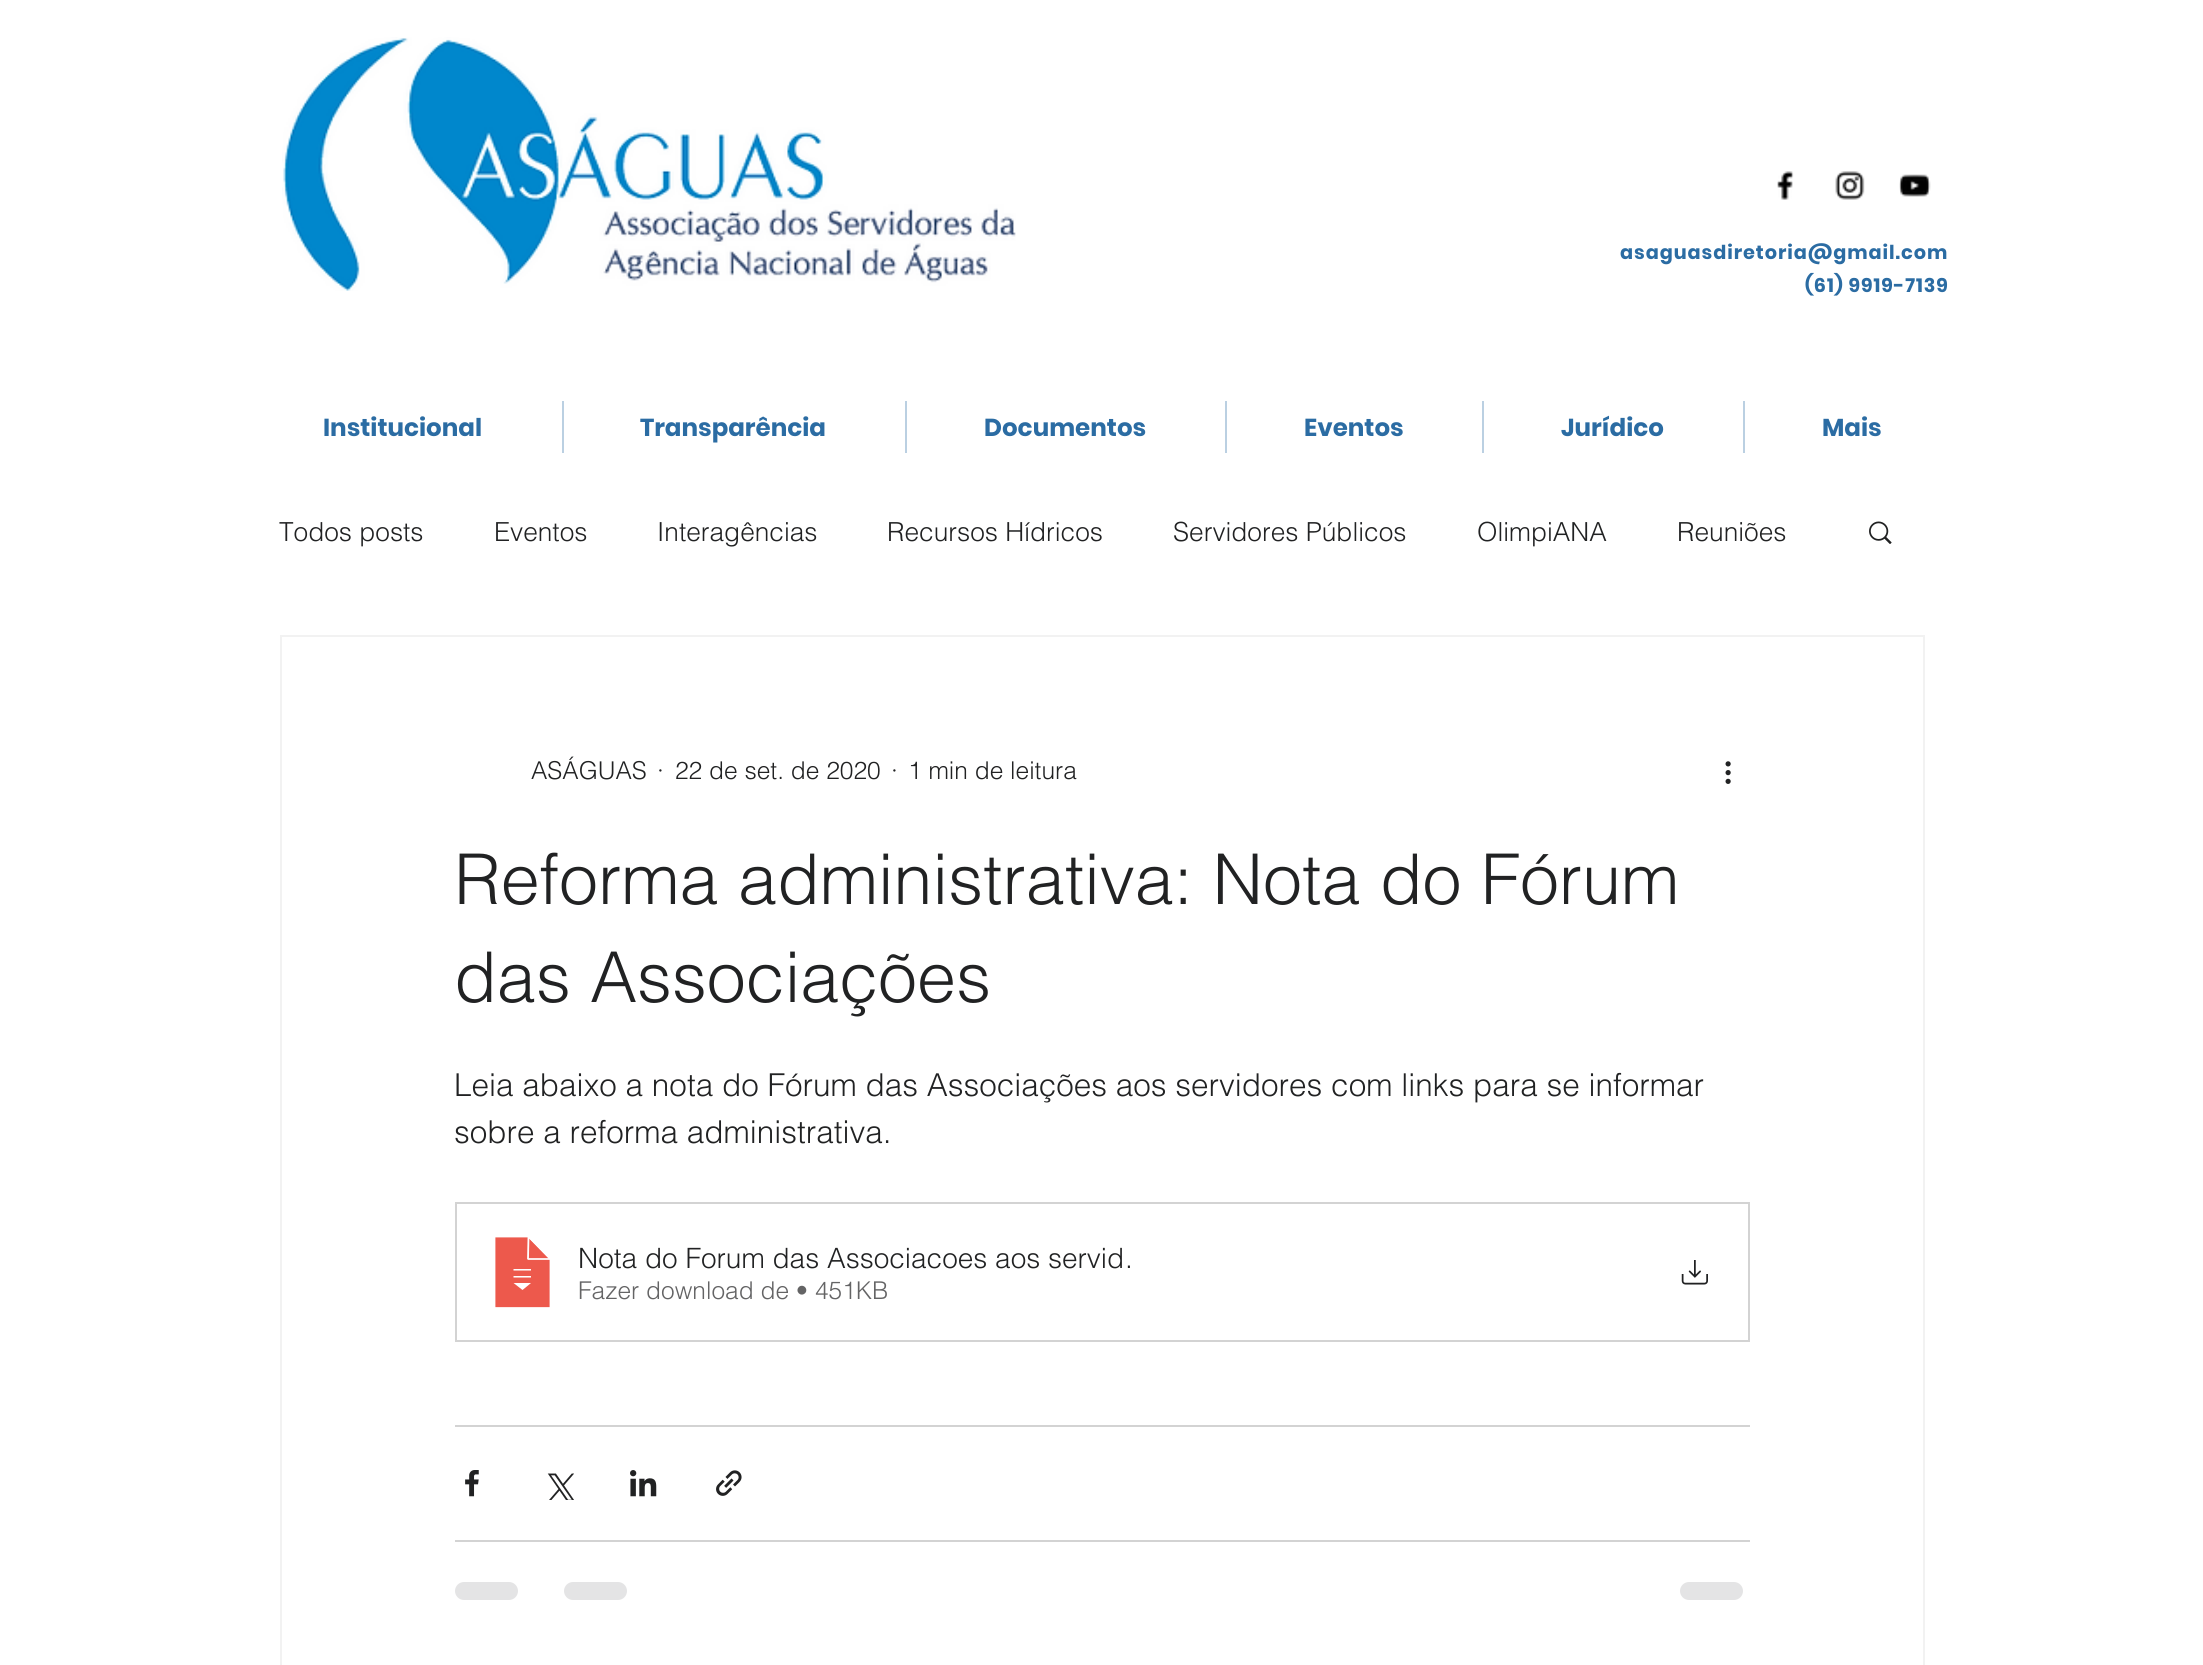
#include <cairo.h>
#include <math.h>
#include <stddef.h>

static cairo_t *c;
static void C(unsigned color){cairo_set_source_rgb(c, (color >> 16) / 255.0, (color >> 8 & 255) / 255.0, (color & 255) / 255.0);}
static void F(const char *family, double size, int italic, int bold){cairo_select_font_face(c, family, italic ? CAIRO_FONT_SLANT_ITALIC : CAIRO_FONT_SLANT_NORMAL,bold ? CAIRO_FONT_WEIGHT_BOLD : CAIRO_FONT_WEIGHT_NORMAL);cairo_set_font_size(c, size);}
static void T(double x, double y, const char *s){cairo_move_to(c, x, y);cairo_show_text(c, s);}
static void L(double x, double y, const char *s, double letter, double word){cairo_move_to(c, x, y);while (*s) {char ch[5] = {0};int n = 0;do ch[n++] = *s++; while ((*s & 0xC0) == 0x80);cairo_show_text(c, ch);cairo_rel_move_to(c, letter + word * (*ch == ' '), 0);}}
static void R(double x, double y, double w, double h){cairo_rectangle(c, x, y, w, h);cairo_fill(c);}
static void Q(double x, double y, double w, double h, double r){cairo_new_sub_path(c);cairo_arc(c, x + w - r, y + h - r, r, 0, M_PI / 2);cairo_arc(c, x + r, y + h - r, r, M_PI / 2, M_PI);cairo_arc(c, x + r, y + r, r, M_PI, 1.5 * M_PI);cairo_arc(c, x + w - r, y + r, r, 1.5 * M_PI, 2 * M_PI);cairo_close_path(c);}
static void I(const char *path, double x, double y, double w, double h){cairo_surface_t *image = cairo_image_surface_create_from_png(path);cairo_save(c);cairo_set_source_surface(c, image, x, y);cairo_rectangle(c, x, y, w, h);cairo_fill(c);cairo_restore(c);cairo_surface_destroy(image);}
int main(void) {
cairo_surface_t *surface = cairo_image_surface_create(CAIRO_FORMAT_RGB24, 2203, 1665);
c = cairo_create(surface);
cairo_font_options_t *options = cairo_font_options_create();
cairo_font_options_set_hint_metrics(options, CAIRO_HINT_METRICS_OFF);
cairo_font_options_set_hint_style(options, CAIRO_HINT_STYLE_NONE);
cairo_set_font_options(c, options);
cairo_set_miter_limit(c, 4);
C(0xffffff);
cairo_paint(c);
I("1.png",282,37,734,254);
I("2.png",1777,171,17,29);
I("3.png",1835,171,30,29);
I("4.png",1899,174,32,23);
F("Poppins",19.25,0,1);
C(0x2b6ca3);
L(1620,259,"asaguasdiretoria@gmail.com",.95,0);
L(1805,292,"(61) 9919-7139",.95,0);
F("Poppins",24.5,0,1);
T(323,436,"Institucional");
C(0xbbd0e2);
R(562,401,2,52);
C(0x2b6ca3);
T(640,436,"Transparência");
C(0xbbd0e2);
R(905,401,2,52);
C(0x2b6ca3);
T(984,436,"Documentos");
C(0xbbd0e2);
R(1225,401,2,52);
C(0x2b6ca3);
T(1304,436,"Eventos");
C(0xbbd0e2);
R(1482,401,2,52);
C(0x2b6ca3);
T(1561,436,"Jurídico");
C(0xbbd0e2);
R(1743,401,2,52);
C(0x2b6ca3);
T(1822,436,"Mais");
F("helvetica Light",26.25,0,0);
C(0x212223);
T(279,541,"Todos posts");
T(494,541,"Eventos");
T(657,541,"Interagências");
T(887,541,"Recursos Hídricos");
T(1173,541,"Servidores Públicos");
T(1477,541,"OlimpiANA");
T(1677,541,"Reuniões");
I("5.png",1869,521,23,23);
cairo_rectangle(c,281,636,1643,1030);
C(0xf2f2f2);
cairo_stroke(c);
F("helvetica Light",24.5,0,0);
C(0x212223);
T(531,779,"ASÁGUAS");
T(657,779,"·");
T(675,779,"22 de set. de 2020");
T(891,779,"·");
T(908,779,"1 min de leitura");
I("6.png",1725,761,6,23);
F("helvetica Light",70,0,0);
T(454,904,"Reforma administrativa: Nota do Fórum");
T(454,1002,"das Associações");
F("helvetica Light",31.5,0,0);
T(454,1096,"Leia abaixo a nota do Fórum das Associações aos servidores com links para se informar");
T(454,1143,"sobre a reforma administrativa.");
cairo_rectangle(c,456,1203,1293,138);
C(0xd3d3d3);
cairo_stroke(c);
C(0xed594c);
cairo_set_fill_rule(c,CAIRO_FILL_RULE_EVEN_ODD);
cairo_new_path(c);
cairo_move_to(c,550,1308);
cairo_line_to(c,494,1308);
cairo_line_to(c,494,1236);
cairo_line_to(c,528,1236);
cairo_line_to(c,550,1259);
cairo_close_path(c);
cairo_fill(c);
cairo_save(c);
cairo_set_fill_rule(c,CAIRO_FILL_RULE_WINDING);
cairo_rectangle(c,488,1236,70,73);
cairo_clip(c);
cairo_new_path(c);
cairo_move_to(c,550.5,1308);
cairo_line_to(c,494.5,1308);
cairo_line_to(c,494.5,1236.5);
cairo_line_to(c,528.5,1236.5);
cairo_line_to(c,550.5,1259);
cairo_close_path(c);
C(0xffffff);
cairo_set_line_width(c,1.8);
cairo_set_line_join(c,CAIRO_LINE_JOIN_BEVEL);
cairo_stroke(c);
cairo_restore(c);
cairo_new_path(c);
cairo_move_to(c,528,1259);
cairo_line_to(c,550.5,1259);
cairo_line_to(c,528.5,1236.5);
cairo_close_path(c);
C(0xffffff);
cairo_set_line_width(c,1.8);
cairo_set_line_join(c,CAIRO_LINE_JOIN_BEVEL);
cairo_stroke(c);
cairo_new_path(c);
cairo_move_to(c,513.5,1276);
cairo_line_to(c,531,1276);
cairo_line_to(c,531,1277.5);
cairo_line_to(c,513.5,1277.5);
cairo_close_path(c);
cairo_move_to(c,513.5,1269);
cairo_line_to(c,531,1269);
cairo_line_to(c,531,1270.5);
cairo_line_to(c,513.5,1270.5);
cairo_close_path(c);
cairo_move_to(c,522.5,1290);
cairo_line_to(c,531,1283);
cairo_line_to(c,513.5,1283);
cairo_close_path(c);
cairo_fill(c);
F("helvetica Light",28,0,0);
C(0x212223);
T(578,1268,"Nota do Forum das Associacoes aos servid");
T(1125,1268,".");
F("helvetica Light",24.5,0,0);
C(0x646465);
T(578,1299,"Fazer download de • 451KB");
I("7.png",1681,1260,27,25);
C(0xd3d3d3);
R(455,1425,1295,2);
I("8.png",465,1470,14,27);
I("9.png",547,1473,27,27);
I("10.png",630,1470,27,27);
I("11.png",716,1470,26,26);
R(455,1540,1295,2);
C(0xe4e4e5);
Q(455,1582,63,18,9);
cairo_fill(c);
Q(564,1582,63,18,9);
cairo_fill(c);
Q(1680,1582,63,18,9);
cairo_fill(c);
cairo_surface_write_to_png(surface, "o.png");
cairo_font_options_destroy(options);
cairo_destroy(c);
cairo_surface_destroy(surface);
return 0;
}
